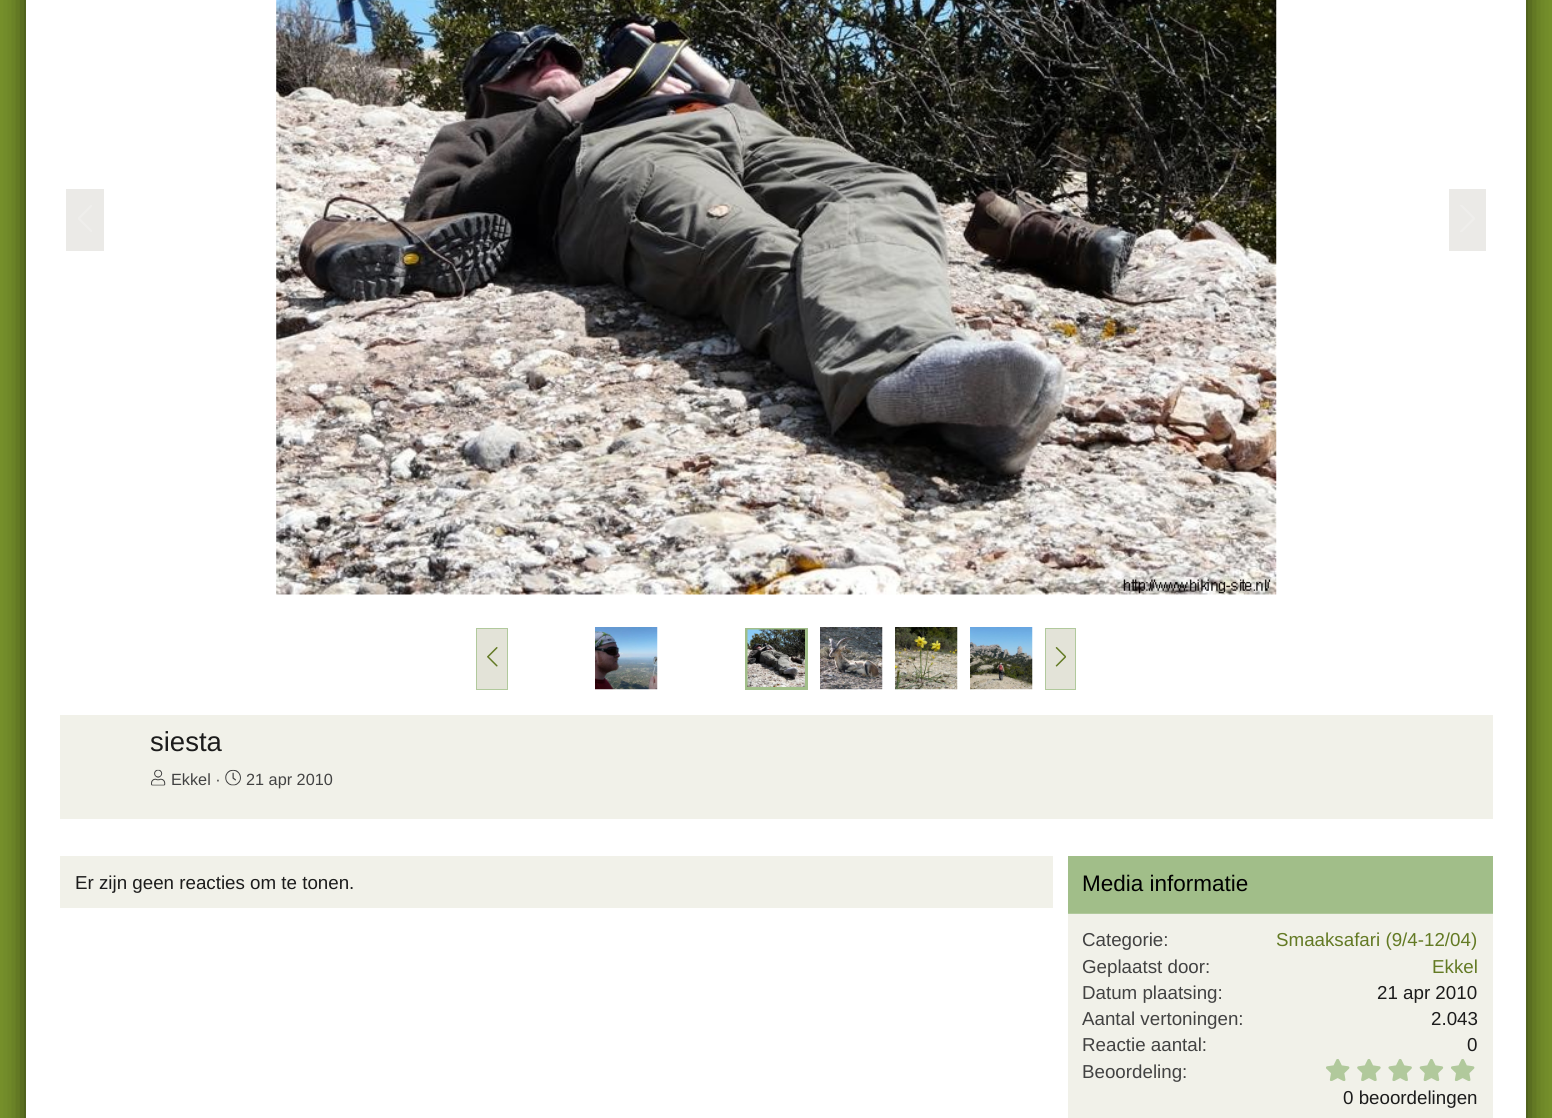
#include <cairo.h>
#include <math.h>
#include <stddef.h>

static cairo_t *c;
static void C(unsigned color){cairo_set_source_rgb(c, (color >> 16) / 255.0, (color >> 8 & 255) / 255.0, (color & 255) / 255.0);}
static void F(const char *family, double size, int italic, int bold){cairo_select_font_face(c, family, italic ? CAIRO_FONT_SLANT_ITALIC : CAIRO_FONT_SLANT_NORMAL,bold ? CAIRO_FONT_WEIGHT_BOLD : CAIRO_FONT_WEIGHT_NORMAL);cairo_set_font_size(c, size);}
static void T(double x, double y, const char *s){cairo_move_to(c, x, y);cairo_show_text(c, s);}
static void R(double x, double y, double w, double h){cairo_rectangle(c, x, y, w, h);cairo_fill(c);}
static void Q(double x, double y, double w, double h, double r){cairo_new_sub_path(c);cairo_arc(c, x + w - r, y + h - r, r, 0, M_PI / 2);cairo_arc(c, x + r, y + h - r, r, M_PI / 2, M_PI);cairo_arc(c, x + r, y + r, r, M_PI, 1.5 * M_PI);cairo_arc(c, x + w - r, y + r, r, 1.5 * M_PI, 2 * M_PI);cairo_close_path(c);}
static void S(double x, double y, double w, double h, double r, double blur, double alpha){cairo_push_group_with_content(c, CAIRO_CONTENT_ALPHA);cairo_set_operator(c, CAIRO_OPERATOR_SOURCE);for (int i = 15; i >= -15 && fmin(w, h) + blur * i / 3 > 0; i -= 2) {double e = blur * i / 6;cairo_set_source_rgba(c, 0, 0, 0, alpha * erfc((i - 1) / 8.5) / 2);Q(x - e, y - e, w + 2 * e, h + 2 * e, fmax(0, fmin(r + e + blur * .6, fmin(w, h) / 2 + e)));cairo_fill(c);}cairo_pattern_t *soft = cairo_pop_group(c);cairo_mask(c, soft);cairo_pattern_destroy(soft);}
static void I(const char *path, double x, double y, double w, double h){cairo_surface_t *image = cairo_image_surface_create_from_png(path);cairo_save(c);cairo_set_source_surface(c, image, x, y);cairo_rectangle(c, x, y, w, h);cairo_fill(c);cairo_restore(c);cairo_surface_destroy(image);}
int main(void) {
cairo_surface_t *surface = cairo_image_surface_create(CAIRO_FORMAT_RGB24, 1552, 1118);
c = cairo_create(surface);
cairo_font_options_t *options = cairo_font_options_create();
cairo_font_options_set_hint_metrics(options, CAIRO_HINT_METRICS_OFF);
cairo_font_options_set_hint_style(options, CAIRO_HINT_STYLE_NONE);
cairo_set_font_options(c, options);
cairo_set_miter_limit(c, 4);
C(0x76912b);
cairo_paint(c);
C(0x000000);
S(26,-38,1500,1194,0,12.5,.65);
C(0xffffff);
R(26,0,1500,1118);
C(0xebeae7);
R(66,189,38,62);
I("1.png",78,205,14,27);
I("2.png",276,0,1001,595);
R(1449,189,37,62);
I("3.png",1460,205,15,27);
C(0xe3e3d8);
cairo_rectangle(c,476.5,628.5,31,61);
cairo_fill_preserve(c);
C(0xb1c99c);
cairo_set_line_width(c,1);
cairo_stroke(c);
I("4.png",487,647,11,20);
I("5.png",595,627,63,63);
cairo_rectangle(c,746.5,629.5,60,59);
C(0xa1be89);
cairo_set_line_width(c,3);
cairo_stroke(c);
I("6.png",747,629,58,58);
I("7.png",820,627,63,63);
I("8.png",895,627,63,63);
I("9.png",970,627,63,63);
C(0xe3e3d8);
cairo_rectangle(c,1045.5,628.5,30,61);
cairo_fill_preserve(c);
C(0xb1c99c);
cairo_set_line_width(c,1);
cairo_stroke(c);
I("10.png",1055,647,11,20);
C(0xf1f1e9);
R(60,715,1433,104);
F("Liberation Sans",27.5,0,0);
C(0x1c1c1c);
T(150,751,"siesta");
I("11.png",151,769,15,17);
F("Liberation Sans",16.25,0,0);
C(0x424242);
T(171,785,"Ekkel ·");
I("12.png",225,769,16,17);
T(246,785,"21 apr 2010");
C(0xf1f1e9);
R(60,856,993,52);
F("Liberation Sans",18.75,0,0);
C(0x1c1c1c);
T(75,889,"Er zijn geen reacties om te tonen.");
C(0xf1f1e9);
R(1068,914,425,204);
C(0xa1be89);
R(1068,856,425,57);
C(0xb1c99c);
R(1068,913,425,1);
F("Liberation Sans",22.5,0,0);
C(0x000000);
T(1082,891,"Media informatie");
F("Liberation Sans",18.75,0,0);
C(0x424242);
T(1082,946,"Categorie:");
C(0x637a24);
T(1276,946,"Smaaksafari (9/4-12/04)");
C(0x424242);
T(1082,973,"Geplaatst door:");
C(0x637a24);
T(1432,973,"Ekkel");
C(0x424242);
T(1082,999,"Datum plaatsing:");
C(0x1c1c1c);
T(1377,999,"21 apr 2010");
C(0x424242);
T(1082,1025,"Aantal vertoningen:");
C(0x1c1c1c);
T(1431,1025,"2.043");
C(0x424242);
T(1082,1051,"Reactie aantal:");
C(0x1c1c1c);
T(1467,1051,"0");
C(0x424242);
T(1082,1078,"Beoordeling:");
I("13.png",1326,1059,24,22);
I("14.png",1357,1059,24,22);
I("15.png",1388,1059,24,22);
I("16.png",1419,1059,25,22);
I("13.png",1451,1059,24,22);
C(0x1c1c1c);
T(1343,1104,"0 beoordelingen");
cairo_surface_write_to_png(surface, "o.png");
cairo_font_options_destroy(options);
cairo_destroy(c);
cairo_surface_destroy(surface);
return 0;
}
